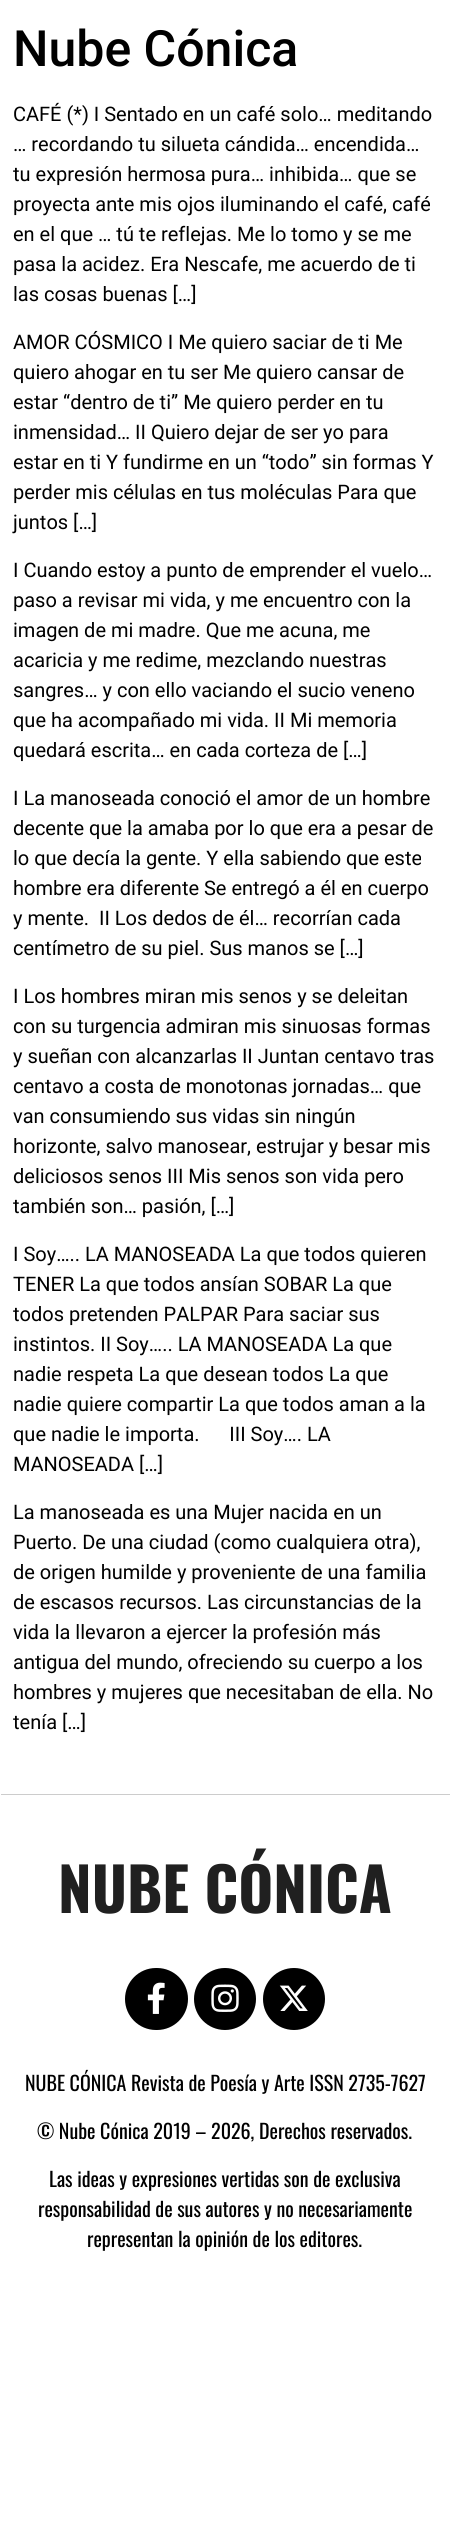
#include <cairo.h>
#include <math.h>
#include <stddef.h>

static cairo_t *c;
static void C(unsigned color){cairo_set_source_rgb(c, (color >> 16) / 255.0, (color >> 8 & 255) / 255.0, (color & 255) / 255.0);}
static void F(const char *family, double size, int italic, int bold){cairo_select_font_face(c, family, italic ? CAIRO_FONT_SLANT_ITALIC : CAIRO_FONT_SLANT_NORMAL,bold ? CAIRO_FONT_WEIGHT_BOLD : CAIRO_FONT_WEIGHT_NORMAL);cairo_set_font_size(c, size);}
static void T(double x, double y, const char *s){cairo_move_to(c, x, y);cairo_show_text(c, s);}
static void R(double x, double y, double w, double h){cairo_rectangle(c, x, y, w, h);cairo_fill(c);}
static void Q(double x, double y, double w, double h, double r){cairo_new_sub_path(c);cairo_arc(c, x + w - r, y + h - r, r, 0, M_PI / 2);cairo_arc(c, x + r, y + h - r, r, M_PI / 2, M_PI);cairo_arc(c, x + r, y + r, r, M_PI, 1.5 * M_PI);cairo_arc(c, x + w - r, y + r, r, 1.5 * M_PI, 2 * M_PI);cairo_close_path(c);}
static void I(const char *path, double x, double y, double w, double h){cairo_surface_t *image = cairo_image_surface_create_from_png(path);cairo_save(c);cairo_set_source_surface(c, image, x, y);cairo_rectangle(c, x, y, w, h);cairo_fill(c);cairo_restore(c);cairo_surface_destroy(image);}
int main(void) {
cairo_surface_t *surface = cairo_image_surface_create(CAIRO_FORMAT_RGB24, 450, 2543);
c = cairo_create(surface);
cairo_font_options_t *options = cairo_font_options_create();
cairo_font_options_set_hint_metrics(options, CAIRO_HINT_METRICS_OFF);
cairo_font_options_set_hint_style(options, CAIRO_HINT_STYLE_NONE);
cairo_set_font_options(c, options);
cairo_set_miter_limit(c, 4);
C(0xffffff);
cairo_paint(c);
F("Roboto Medium",50,0,0);
C(0x000000);
T(13,66,"Nube Cónica");
F("Roboto",20,0,0);
T(13,121,"CAFÉ (*) I Sentado en un café solo… meditando");
T(13,151,"… recordando tu silueta cándida… encendida…");
T(13,181,"tu expresión hermosa pura… inhibida… que se");
T(13,211,"proyecta ante mis ojos iluminando el café, café");
T(13,241,"en el que … tú te reflejas. Me lo tomo y se me");
T(13,271,"pasa la acidez. Era Nescafe, me acuerdo de ti");
T(13,301,"las cosas buenas […]");
T(13,349,"AMOR CÓSMICO I Me quiero saciar de ti Me");
T(13,379,"quiero ahogar en tu ser Me quiero cansar de");
T(13,409,"estar “dentro de ti” Me quiero perder en tu");
T(13,439,"inmensidad… II Quiero dejar de ser yo para");
T(13,469,"estar en ti Y fundirme en un “todo” sin formas Y");
T(13,499,"perder mis células en tus moléculas Para que");
T(13,529,"juntos […]");
T(13,577,"I Cuando estoy a punto de emprender el vuelo…");
T(13,607,"paso a revisar mi vida, y me encuentro con la");
T(13,637,"imagen de mi madre. Que me acuna, me");
T(13,667,"acaricia y me redime, mezclando nuestras");
T(13,697,"sangres… y con ello vaciando el sucio veneno");
T(13,727,"que ha acompañado mi vida. II Mi memoria");
T(13,757,"quedará escrita… en cada corteza de […]");
T(13,805,"I La manoseada conoció el amor de un hombre");
T(13,835,"decente que la amaba por lo que era a pesar de");
T(13,865,"lo que decía la gente. Y ella sabiendo que este");
T(13,895,"hombre era diferente Se entregó a él en cuerpo");
T(13,925,"y mente.  II Los dedos de él… recorrían cada");
T(13,955,"centímetro de su piel. Sus manos se […]");
T(13,1003,"I Los hombres miran mis senos y se deleitan");
T(13,1033,"con su turgencia admiran mis sinuosas formas");
T(13,1063,"y sueñan con alcanzarlas II Juntan centavo tras");
T(13,1093,"centavo a costa de monotonas jornadas… que");
T(13,1123,"van consumiendo sus vidas sin ningún");
T(13,1153,"horizonte, salvo manosear, estrujar y besar mis");
T(13,1183,"deliciosos senos III Mis senos son vida pero");
T(13,1213,"también son… pasión, […]");
T(13,1261,"I Soy….. LA MANOSEADA La que todos quieren");
T(13,1291,"TENER La que todos ansían SOBAR La que");
T(13,1321,"todos pretenden PALPAR Para saciar sus");
T(13,1351,"instintos. II Soy….. LA MANOSEADA La que");
T(13,1381,"nadie respeta La que desean todos La que");
T(13,1411,"nadie quiere compartir La que todos aman a la");
T(13,1441,"que nadie le importa.      III Soy…. LA");
T(13,1471,"MANOSEADA […]");
T(13,1519,"La manoseada es una Mujer nacida en un");
T(13,1549,"Puerto. De una ciudad (como cualquiera otra),");
T(13,1579,"de origen humilde y proveniente de una familia");
T(13,1609,"de escasos recursos. Las circunstancias de la");
T(13,1639,"vida la llevaron a ejercer la profesión más");
T(13,1669,"antigua del mundo, ofreciendo su cuerpo a los");
T(13,1699,"hombres y mujeres que necesitaban de ella. No");
T(13,1729,"tenía […]");
C(0xcccccc);
R(1,1794,449,1);
F("Oswald",60,0,1);
C(0x202020);
T(58,1913,"NUBE CÓNICA");
C(0x000000);
Q(125,1968,63,62,31);
cairo_fill(c);
I("1.png",147,1982,18,32);
cairo_arc(c,225,1999,31,0,2 * M_PI);
cairo_fill(c);
I("2.png",211,1984,28,28);
cairo_arc(c,294,1999,31,0,2 * M_PI);
cairo_fill(c);
I("3.png",279,1985,29,26);
F("Oswald",20,0,0);
T(25,2091,"NUBE CÓNICA Revista de Poesía y Arte ISSN 2735-7627");
T(37,2139,"© Nube Cónica 2019 – 2026, Derechos reservados.");
T(49,2187,"Las ideas y expresiones vertidas son de exclusiva");
T(38,2217,"responsabilidad de sus autores y no necesariamente");
T(87,2247,"representan la opinión de los editores.");
cairo_surface_write_to_png(surface, "o.png");
cairo_font_options_destroy(options);
cairo_destroy(c);
cairo_surface_destroy(surface);
return 0;
}
